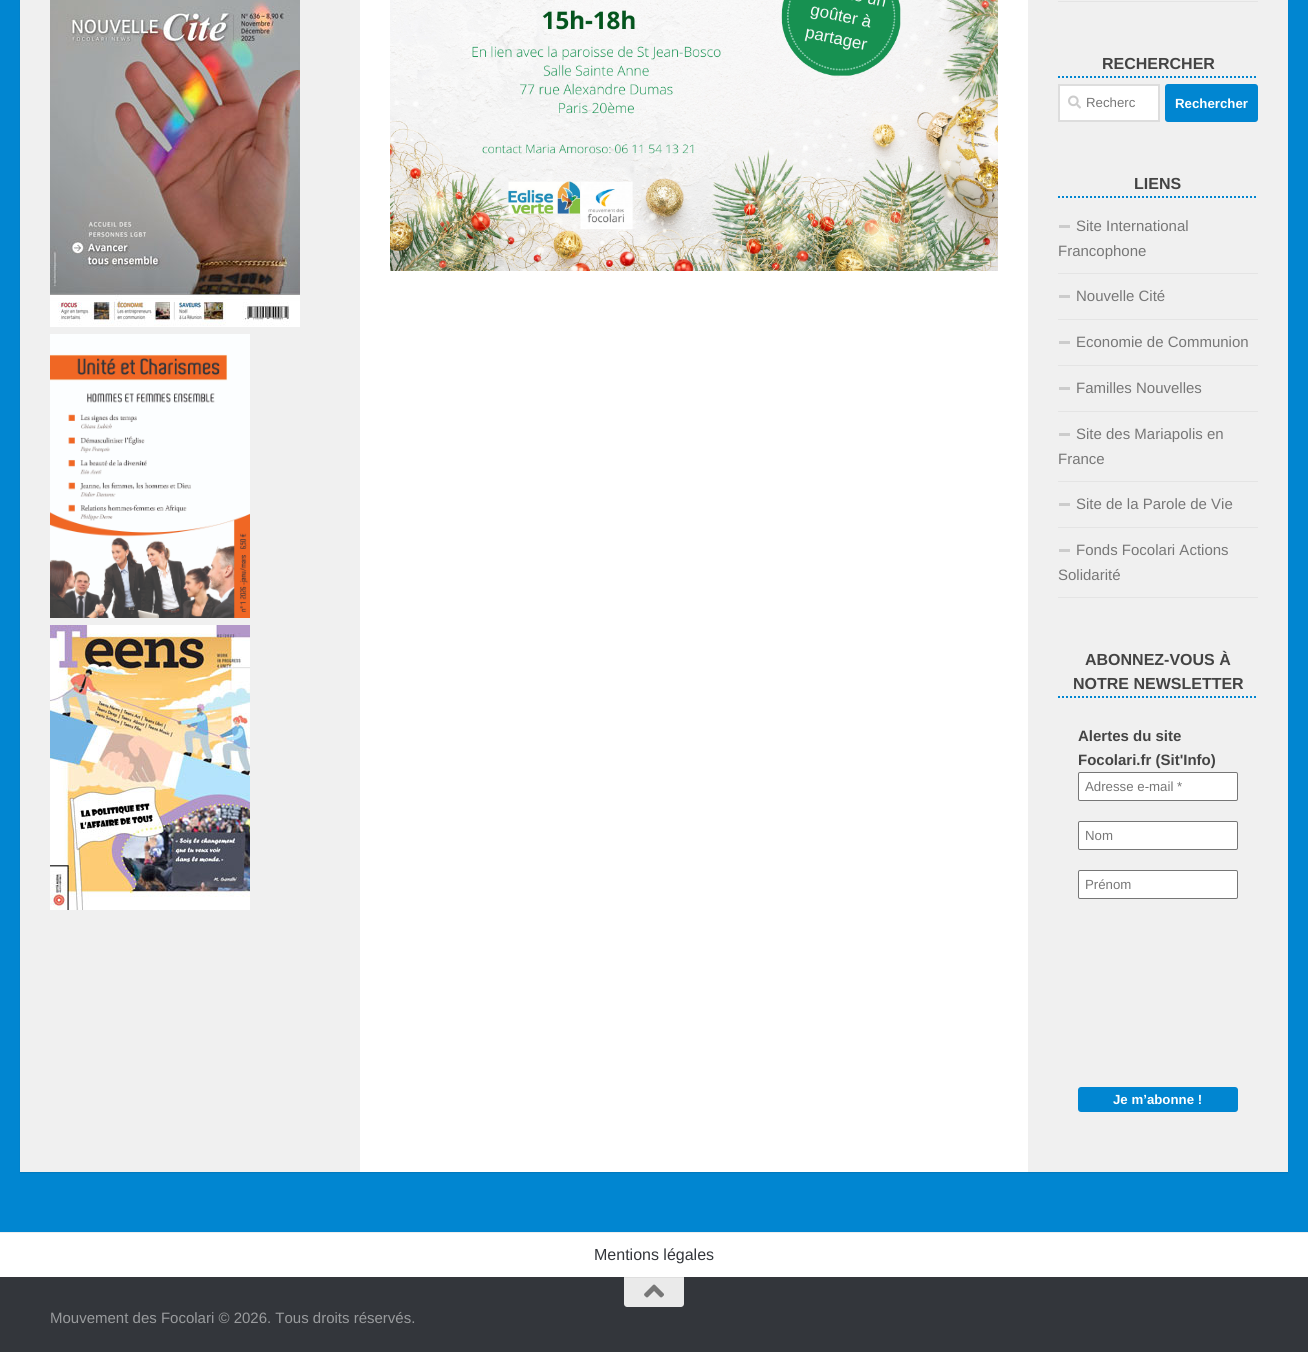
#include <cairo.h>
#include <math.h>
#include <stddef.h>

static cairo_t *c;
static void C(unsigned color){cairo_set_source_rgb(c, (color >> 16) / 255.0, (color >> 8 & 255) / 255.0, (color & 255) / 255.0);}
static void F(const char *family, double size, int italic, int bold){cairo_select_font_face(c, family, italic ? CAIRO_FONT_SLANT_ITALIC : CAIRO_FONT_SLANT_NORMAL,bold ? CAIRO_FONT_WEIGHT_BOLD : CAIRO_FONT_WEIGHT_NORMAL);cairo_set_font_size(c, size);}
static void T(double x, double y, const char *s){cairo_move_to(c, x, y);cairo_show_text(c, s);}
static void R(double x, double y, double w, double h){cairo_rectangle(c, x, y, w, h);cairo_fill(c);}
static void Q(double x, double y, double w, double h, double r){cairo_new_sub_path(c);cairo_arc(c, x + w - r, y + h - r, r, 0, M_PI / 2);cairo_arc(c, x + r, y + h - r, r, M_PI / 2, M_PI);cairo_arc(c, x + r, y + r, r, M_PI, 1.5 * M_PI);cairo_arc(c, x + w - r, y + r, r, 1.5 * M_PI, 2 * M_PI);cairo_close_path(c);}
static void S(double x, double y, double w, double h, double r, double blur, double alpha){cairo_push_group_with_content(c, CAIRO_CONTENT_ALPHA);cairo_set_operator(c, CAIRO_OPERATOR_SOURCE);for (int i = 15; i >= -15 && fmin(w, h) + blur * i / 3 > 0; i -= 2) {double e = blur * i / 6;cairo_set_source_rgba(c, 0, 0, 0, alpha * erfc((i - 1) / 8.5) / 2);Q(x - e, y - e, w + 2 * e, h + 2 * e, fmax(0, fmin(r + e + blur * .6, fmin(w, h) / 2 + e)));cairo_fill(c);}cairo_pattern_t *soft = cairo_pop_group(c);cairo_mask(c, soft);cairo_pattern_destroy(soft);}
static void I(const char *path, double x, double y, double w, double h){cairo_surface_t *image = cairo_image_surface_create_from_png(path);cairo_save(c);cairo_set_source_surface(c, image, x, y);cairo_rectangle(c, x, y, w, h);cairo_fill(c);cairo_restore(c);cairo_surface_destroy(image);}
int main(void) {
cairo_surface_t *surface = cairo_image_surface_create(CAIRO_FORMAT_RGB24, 1308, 1352);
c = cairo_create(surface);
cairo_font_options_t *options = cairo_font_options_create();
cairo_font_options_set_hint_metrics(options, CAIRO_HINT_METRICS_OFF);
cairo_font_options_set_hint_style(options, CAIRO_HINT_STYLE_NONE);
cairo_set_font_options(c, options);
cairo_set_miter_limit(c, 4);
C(0x0186d1);
cairo_paint(c);
C(0x000000);
S(20,-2,1268,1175,0,.5,.1);
C(0xffffff);
R(360,0,668,1172);
C(0xf0f0f0);
R(20,0,340,1172);
R(1028,0,260,1172);
I("1.png",50,0,250,327);
I("2.png",50,334,200,284);
I("3.png",50,625,200,285);
I("4.png",390,0,608,271);
C(0xe4e4e4);
R(1058,1,200,1);
cairo_new_path(c);
cairo_move_to(c,1058,77);
cairo_line_to(c,1258,77);
C(0x0186d1);
cairo_set_dash(c,(double[]){2,2},2,0);
cairo_stroke(c);
F("Liberation Sans",16,0,1);
C(0x444444);
T(1102,69,"RECHERCHER");
C(0xffffff);
cairo_rectangle(c,1059,85,100,36);
cairo_fill_preserve(c);
C(0xdddddd);
cairo_set_dash(c,NULL,0,0);
cairo_stroke(c);
I("5.png",1068,95,13,14);
F("Liberation Sans",13.25,0,0);
C(0x777777);
T(1086,107,"Recherc");
C(0x0186d1);
Q(1165,84,93,38,3);
cairo_fill(c);
F("Liberation Sans",13.25,0,1);
C(0xffffff);
T(1175,108,"Rechercher");
cairo_new_path(c);
cairo_move_to(c,1058,197);
cairo_line_to(c,1258,197);
C(0x0186d1);
cairo_set_dash(c,(double[]){2,2},2,0);
cairo_stroke(c);
F("Liberation Sans",16,0,1);
C(0x444444);
T(1134,189,"LIENS");
C(0xe4e4e4);
R(1058,273,200,1);
C(0xcccccc);
R(1059,225,11,3);
F("Liberation Sans",15,0,0);
C(0x777777);
T(1076,231,"Site International");
T(1058,256,"Francophone");
C(0xe4e4e4);
R(1058,319,200,1);
C(0xcccccc);
R(1059,295,11,3);
C(0x777777);
T(1076,301,"Nouvelle Cité");
C(0xe4e4e4);
R(1058,365,200,1);
C(0xcccccc);
R(1059,341,11,3);
C(0x777777);
T(1076,347,"Economie de Communion");
C(0xe4e4e4);
R(1058,411,200,1);
C(0xcccccc);
R(1059,387,11,3);
C(0x777777);
T(1076,393,"Familles Nouvelles");
C(0xe4e4e4);
R(1058,481,200,1);
C(0xcccccc);
R(1059,433,11,3);
C(0x777777);
T(1076,439,"Site des Mariapolis en");
T(1058,464,"France");
C(0xe4e4e4);
R(1058,527,200,1);
C(0xcccccc);
R(1059,503,11,3);
C(0x777777);
T(1076,509,"Site de la Parole de Vie");
C(0xe4e4e4);
R(1058,597,200,1);
C(0xcccccc);
R(1059,549,11,3);
C(0x777777);
T(1076,555,"Fonds Focolari Actions");
T(1058,580,"Solidarité");
cairo_new_path(c);
cairo_move_to(c,1058,697);
cairo_line_to(c,1258,697);
C(0x0186d1);
cairo_stroke(c);
F("Liberation Sans",16,0,1);
C(0x444444);
T(1085,665,"ABONNEZ-VOUS À");
T(1073,689,"NOTRE NEWSLETTER");
F("Liberation Sans",15,0,1);
T(1078,741,"Alertes du site");
T(1078,765,"Focolari.fr (Sit'Info)");
C(0xffffff);
Q(1078.5,772.5,159,28,1.5);
cairo_fill_preserve(c);
C(0x767676);
cairo_set_line_width(c,1);
cairo_set_dash(c,NULL,0,0);
cairo_stroke(c);
F("Liberation Sans",13.25,0,0);
C(0x777777);
T(1085,791,"Adresse e-mail *");
C(0xffffff);
Q(1078.5,821.5,159,28,1.5);
cairo_fill_preserve(c);
C(0x767676);
cairo_stroke(c);
C(0x777777);
T(1085,840,"Nom");
C(0xffffff);
Q(1078.5,870.5,159,28,1.5);
cairo_fill_preserve(c);
C(0x767676);
cairo_stroke(c);
C(0x777777);
T(1085,889,"Prénom");
C(0x0186d1);
Q(1078,1087,160,25,3);
cairo_fill(c);
F("Liberation Sans",13.25,0,1);
C(0xffffff);
T(1113,1104,"Je m’abonne !");
R(0,1233,1308,44);
C(0xeeeeee);
R(0,1232,1308,1);
F("Liberation Sans",16,0,0);
C(0x33363b);
T(594,1260,"Mentions légales");
R(0,1277,1308,75);
C(0xeaeaea);
cairo_new_path(c);
cairo_move_to(c,624,1277);
cairo_line_to(c,684,1277);
cairo_line_to(c,684,1304);
cairo_curve_to(c,684,1305.5,682.5,1307,681,1307);
cairo_line_to(c,627,1307);
cairo_curve_to(c,625.5,1307,624,1305.5,624,1304);
cairo_close_path(c);
cairo_fill(c);
C(0xdedede);
R(624,1277,60,1);
I("6.png",644,1284,20,14);
F("Liberation Sans",15,0,0);
C(0x999b9d);
T(50,1323,"Mouvement des Focolari © 2026. Tous droits réservés.");
cairo_surface_write_to_png(surface, "o.png");
cairo_font_options_destroy(options);
cairo_destroy(c);
cairo_surface_destroy(surface);
return 0;
}
